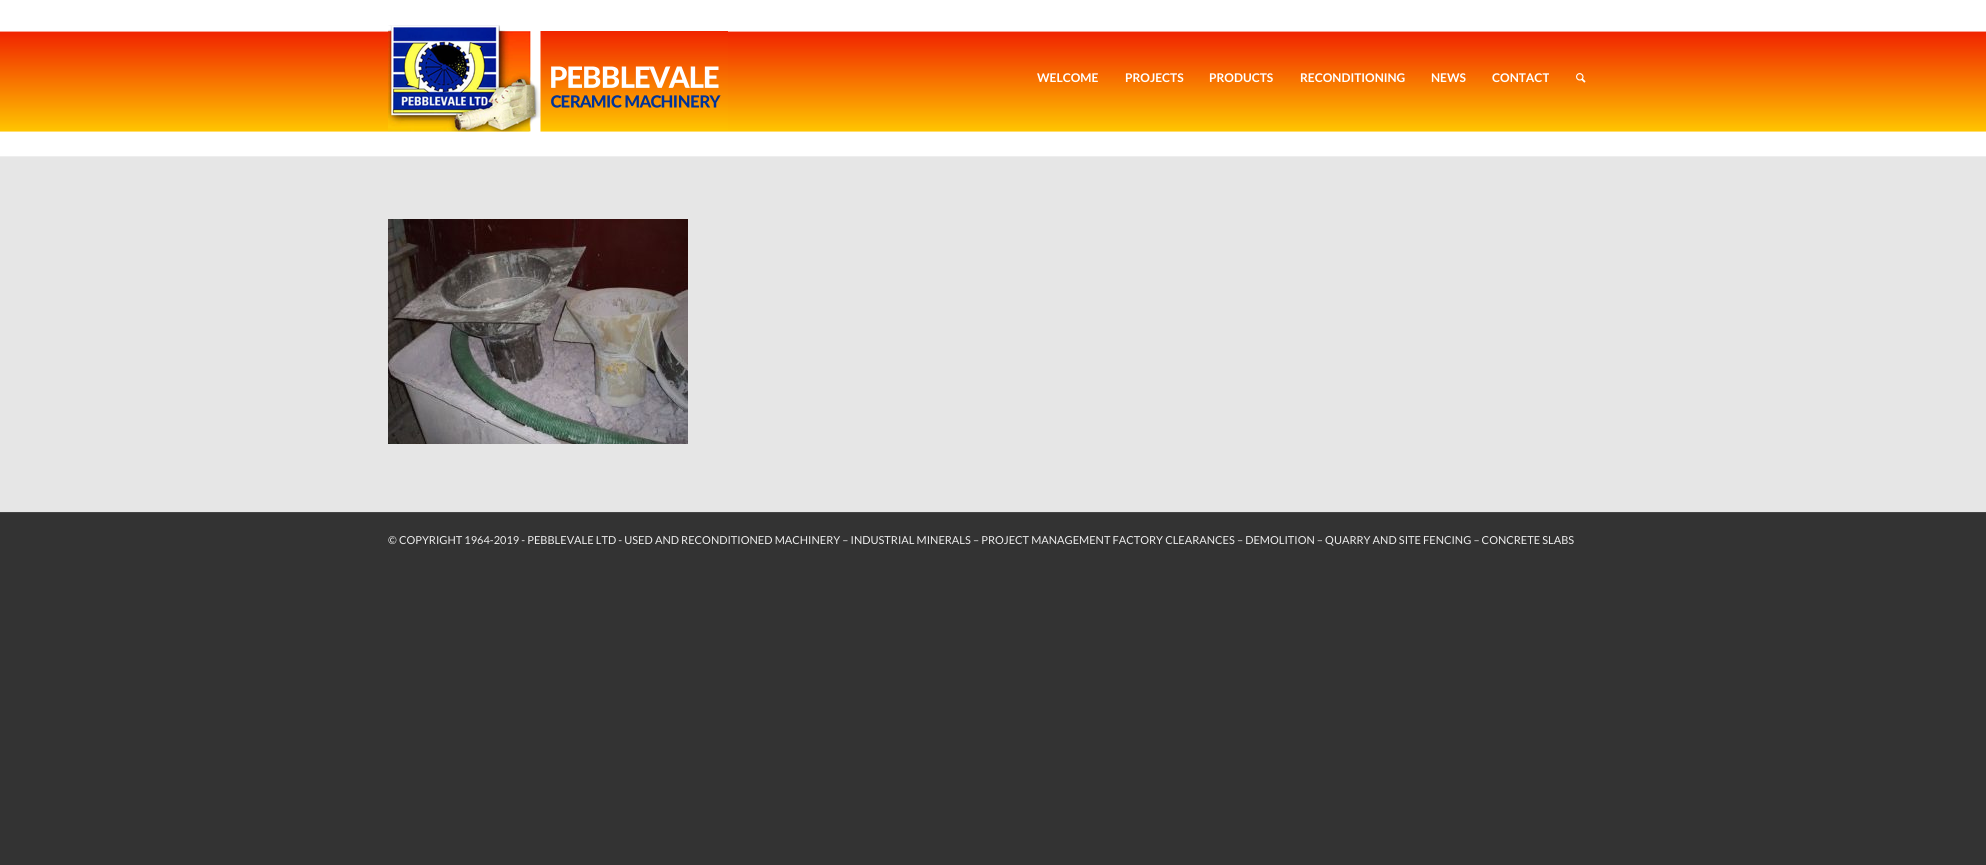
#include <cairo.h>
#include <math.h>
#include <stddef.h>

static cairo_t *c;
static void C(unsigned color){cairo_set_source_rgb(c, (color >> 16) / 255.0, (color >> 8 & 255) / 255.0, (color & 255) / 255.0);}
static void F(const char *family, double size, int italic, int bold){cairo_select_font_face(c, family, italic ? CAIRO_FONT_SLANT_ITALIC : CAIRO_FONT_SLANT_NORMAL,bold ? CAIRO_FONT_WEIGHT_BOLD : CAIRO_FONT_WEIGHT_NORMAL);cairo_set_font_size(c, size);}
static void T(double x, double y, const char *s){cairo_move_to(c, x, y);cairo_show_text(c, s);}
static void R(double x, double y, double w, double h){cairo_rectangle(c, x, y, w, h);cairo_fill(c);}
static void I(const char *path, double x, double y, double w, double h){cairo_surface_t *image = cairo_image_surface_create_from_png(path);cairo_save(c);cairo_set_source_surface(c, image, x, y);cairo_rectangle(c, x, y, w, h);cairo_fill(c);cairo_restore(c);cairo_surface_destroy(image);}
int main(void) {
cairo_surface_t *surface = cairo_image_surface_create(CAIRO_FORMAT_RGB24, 1986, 865);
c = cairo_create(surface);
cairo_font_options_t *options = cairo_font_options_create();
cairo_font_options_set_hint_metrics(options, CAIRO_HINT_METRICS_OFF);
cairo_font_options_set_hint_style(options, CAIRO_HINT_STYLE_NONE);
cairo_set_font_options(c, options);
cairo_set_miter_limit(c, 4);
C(0x333333);
cairo_paint(c);
C(0xffffff);
R(0,0,1986,156);
I("1.png",0,31,1986,101);
C(0xeeeeee);
R(0,156,1986,1);
I("2.png",388,25,340,107);
F("Lato",12,0,1);
C(0xffffff);
T(1037,82,"WELCOME");
T(1125,82,"PROJECTS");
T(1209,82,"PRODUCTS");
T(1300,82,"RECONDITIONING");
T(1431,82,"NEWS");
T(1492,82,"CONTACT");
I("3.png",1576,73,10,10);
C(0xe6e6e6);
R(0,157,1986,355);
I("4.png",388,219,300,225);
C(0x444444);
R(0,512,1986,1);
F("Lato",11,0,0);
C(0xeeeeee);
T(388,544,"© COPYRIGHT 1964-2019 - PEBBLEVALE LTD - USED AND RECONDITIONED MACHINERY – INDUSTRIAL MINERALS – PROJECT MANAGEMENT FACTORY CLEARANCES – DEMOLITION – QUARRY AND SITE FENCING – CONCRETE SLABS");
cairo_surface_write_to_png(surface, "o.png");
cairo_font_options_destroy(options);
cairo_destroy(c);
cairo_surface_destroy(surface);
return 0;
}
